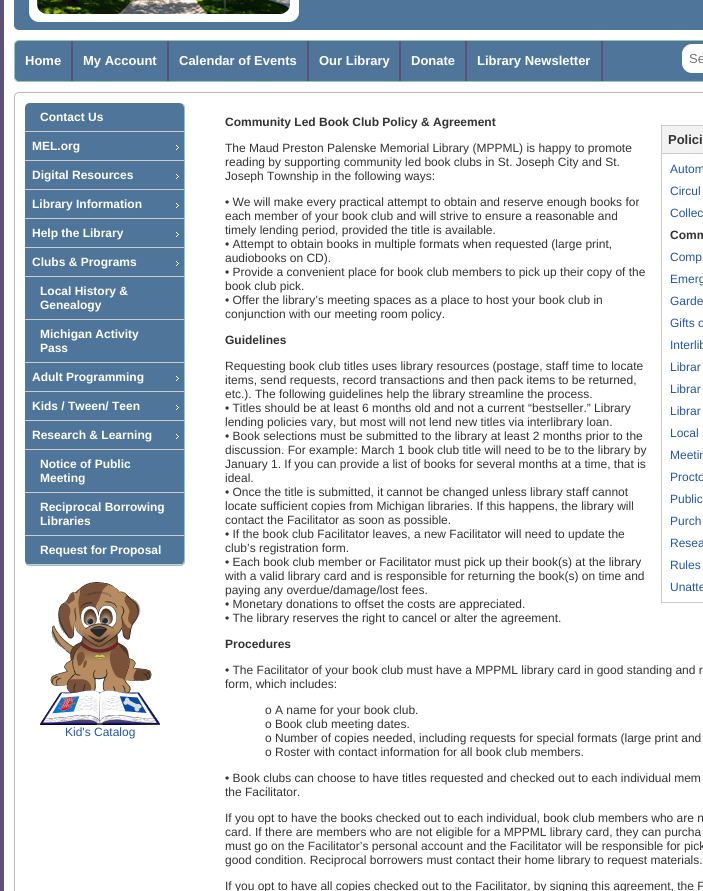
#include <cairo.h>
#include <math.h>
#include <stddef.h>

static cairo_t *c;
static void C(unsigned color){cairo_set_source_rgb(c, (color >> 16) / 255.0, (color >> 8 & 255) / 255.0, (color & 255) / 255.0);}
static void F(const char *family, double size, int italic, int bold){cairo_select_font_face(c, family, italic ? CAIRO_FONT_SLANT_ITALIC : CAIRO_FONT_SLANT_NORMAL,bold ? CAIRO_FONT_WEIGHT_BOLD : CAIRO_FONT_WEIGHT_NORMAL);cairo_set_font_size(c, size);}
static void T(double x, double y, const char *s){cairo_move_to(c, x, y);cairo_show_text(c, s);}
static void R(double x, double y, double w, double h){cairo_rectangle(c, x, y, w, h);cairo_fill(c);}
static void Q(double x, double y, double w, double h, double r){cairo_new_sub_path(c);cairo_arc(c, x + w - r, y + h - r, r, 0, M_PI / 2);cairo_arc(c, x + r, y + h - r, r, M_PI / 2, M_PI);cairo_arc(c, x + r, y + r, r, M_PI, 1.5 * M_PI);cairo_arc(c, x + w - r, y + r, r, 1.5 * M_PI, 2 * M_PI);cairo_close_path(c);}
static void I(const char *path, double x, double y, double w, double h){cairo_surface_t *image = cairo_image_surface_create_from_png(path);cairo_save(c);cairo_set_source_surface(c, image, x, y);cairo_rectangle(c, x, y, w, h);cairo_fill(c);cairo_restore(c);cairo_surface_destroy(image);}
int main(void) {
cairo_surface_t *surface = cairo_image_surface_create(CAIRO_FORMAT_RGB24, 703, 891);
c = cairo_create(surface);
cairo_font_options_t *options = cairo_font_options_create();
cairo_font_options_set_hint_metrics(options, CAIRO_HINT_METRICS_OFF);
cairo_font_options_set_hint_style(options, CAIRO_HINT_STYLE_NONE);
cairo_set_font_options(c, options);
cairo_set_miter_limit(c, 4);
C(0xffffff);
cairo_paint(c);
cairo_rectangle(c,2,-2,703,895);
C(0x5d5179);
cairo_set_line_width(c,4);
cairo_stroke(c);
C(0x4f759b);
Q(14,-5,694,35,5);
cairo_fill(c);
I("1.png",29,0,270,22);
Q(14.5,40.5,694,41,4.5);
cairo_fill_preserve(c);
C(0x92c9b1);
cairo_set_line_width(c,1);
cairo_stroke(c);
C(0x5d5179);
R(71,41,2,40);
F("Liberation Sans",13,0,1);
C(0xffffff);
T(25,65,"Home");
C(0x5d5179);
R(167,41,2,40);
C(0xffffff);
T(83,65,"My Account");
C(0x5d5179);
R(307,41,2,40);
C(0xffffff);
T(179,65,"Calendar of Events");
C(0x5d5179);
R(399,41,2,40);
C(0xffffff);
T(319,65,"Our Library");
C(0x5d5179);
R(465,41,2,40);
C(0xffffff);
T(411,65,"Donate");
C(0x5d5179);
R(601,41,2,40);
C(0xffffff);
T(477,65,"Library Newsletter");
Q(682.5,44.5,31,28,9.5);
cairo_fill_preserve(c);
cairo_stroke(c);
F("Liberation Sans",13,0,0);
C(0x757575);
T(689,63,"Se");
Q(14.5,92.5,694,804,4.5);
C(0xbbbbbb);
cairo_stroke(c);
C(0x92c9b1);
cairo_set_fill_rule(c,CAIRO_FILL_RULE_EVEN_ODD);
cairo_new_path(c);
cairo_move_to(c,30,103);
cairo_line_to(c,180,103);
cairo_curve_to(c,183,103,185,105,185,108);
cairo_line_to(c,185,561);
cairo_curve_to(c,185,564,183,566,180,566);
cairo_line_to(c,30,566);
cairo_curve_to(c,27,566,25,564,25,561);
cairo_line_to(c,25,108);
cairo_curve_to(c,25,105,27,103,30,103);
cairo_close_path(c);
cairo_move_to(c,30,103);
cairo_line_to(c,180,103);
cairo_curve_to(c,182,103,184,105,184,108);
cairo_line_to(c,184,561);
cairo_curve_to(c,184,563,182,565,180,565);
cairo_line_to(c,30,565);
cairo_curve_to(c,27,565,25,563,25,561);
cairo_line_to(c,25,108);
cairo_curve_to(c,25,105,27,103,30,103);
cairo_close_path(c);
cairo_fill(c);
C(0x4f759b);
cairo_new_path(c);
cairo_move_to(c,30,103);
cairo_line_to(c,179,103);
cairo_curve_to(c,182,103,184,105,184,108);
cairo_line_to(c,184,132);
cairo_line_to(c,25,132);
cairo_line_to(c,25,108);
cairo_curve_to(c,25,105,27,103,30,103);
cairo_close_path(c);
cairo_fill(c);
C(0xcccccc);
R(25,131,159,1);
F("Liberation Sans",12,0,1);
C(0xffffff);
T(40,121,"Contact Us");
C(0x4f759b);
R(25,132,159,28);
I("2.png",176,145,3,5);
C(0xcccccc);
R(25,160,159,1);
C(0xffffff);
T(32,150,"MEL.org");
C(0x4f759b);
R(25,161,159,28);
I("2.png",176,174,3,5);
C(0xcccccc);
R(25,189,159,1);
C(0xffffff);
T(32,179,"Digital Resources");
C(0x4f759b);
R(25,190,159,28);
I("2.png",176,203,3,5);
C(0xcccccc);
R(25,218,159,1);
C(0xffffff);
T(32,208,"Library Information");
C(0x4f759b);
R(25,219,159,28);
I("2.png",176,232,3,5);
C(0xcccccc);
R(25,247,159,1);
C(0xffffff);
T(32,237,"Help the Library");
C(0x4f759b);
R(25,248,159,28);
I("2.png",176,261,3,5);
C(0xcccccc);
R(25,276,159,1);
C(0xffffff);
T(32,266,"Clubs & Programs");
C(0x4f759b);
R(25,277,159,42);
C(0xcccccc);
R(25,319,159,1);
C(0xffffff);
T(40,295,"Local History &");
T(40,309,"Genealogy");
C(0x4f759b);
R(25,320,159,42);
C(0xcccccc);
R(25,362,159,1);
C(0xffffff);
T(40,338,"Michigan Activity");
T(40,352,"Pass");
C(0x4f759b);
R(25,363,159,28);
I("2.png",176,376,3,5);
C(0xcccccc);
R(25,391,159,1);
C(0xffffff);
T(32,381,"Adult Programming");
C(0x4f759b);
R(25,392,159,28);
I("2.png",176,405,3,5);
C(0xcccccc);
R(25,420,159,1);
C(0xffffff);
T(32,410,"Kids / Tween/ Teen");
C(0x4f759b);
R(25,421,159,28);
I("2.png",176,434,3,5);
C(0xcccccc);
R(25,449,159,1);
C(0xffffff);
T(32,439,"Research & Learning");
C(0x4f759b);
R(25,450,159,42);
C(0xcccccc);
R(25,492,159,1);
C(0xffffff);
T(40,468,"Notice of Public");
T(40,482,"Meeting");
C(0x4f759b);
R(25,493,159,42);
C(0xcccccc);
R(25,535,159,1);
C(0xffffff);
T(40,511,"Reciprocal Borrowing");
T(40,525,"Libraries");
C(0x4f759b);
cairo_new_path(c);
cairo_move_to(c,25,536);
cairo_line_to(c,184,536);
cairo_line_to(c,184,560);
cairo_curve_to(c,184,563,182,565,179,565);
cairo_line_to(c,30,565);
cairo_curve_to(c,27,565,25,563,25,560);
cairo_close_path(c);
cairo_fill(c);
C(0xcccccc);
R(28,564,154,1);
C(0xffffff);
T(40,554,"Request for Proposal");
I("3.png",40,582,120,143);
F("Liberation Sans",12,0,0);
C(0x2255aa);
T(65,736,"Kid's Catalog");
F("Liberation Sans",12,0,1);
C(0x333333);
T(225,126,"Community Led Book Club Policy & Agreement");
F("Liberation Sans",12,0,0);
T(225,152,"The Maud Preston Palenske Memorial Library (MPPML) is happy to promote");
T(225,166,"reading by supporting community led book clubs in St. Joseph City and St.");
T(225,180,"Joseph Township in the following ways:");
T(225,206,"• We will make every practical attempt to obtain and reserve enough books for");
T(225,220,"each member of your book club and will strive to ensure a reasonable and");
T(225,234,"timely lending period, provided the title is available.");
T(225,248,"• Attempt to obtain books in multiple formats when requested (large print,");
T(225,262,"audiobooks on CD).");
T(225,276,"• Provide a convenient place for book club members to pick up their copy of the");
T(225,290,"book club pick.");
T(225,304,"• Offer the library’s meeting spaces as a place to host your book club in");
T(225,318,"conjunction with our meeting room policy.");
F("Liberation Sans",12,0,1);
T(225,344,"Guidelines");
F("Liberation Sans",12,0,0);
T(225,370,"Requesting book club titles uses library resources (postage, staff time to locate");
T(225,384,"items, send requests, record transactions and then pack items to be returned,");
T(225,398,"etc.). The following guidelines help the library streamline the process.");
T(225,412,"• Titles should be at least 6 months old and not a current “bestseller.” Library");
T(225,426,"lending policies vary, but most will not lend new titles via interlibrary loan.");
T(225,440,"• Book selections must be submitted to the library at least 2 months prior to the");
T(225,454,"discussion. For example: March 1 book club title will need to be to the library by");
T(225,468,"January 1. If you can provide a list of books for several months at a time, that is");
T(225,482,"ideal.");
T(225,496,"• Once the title is submitted, it cannot be changed unless library staff cannot");
T(225,510,"locate sufficient copies from Michigan libraries. If this happens, the library will");
T(225,524,"contact the Facilitator as soon as possible.");
T(225,538,"• If the book club Facilitator leaves, a new Facilitator will need to update the");
T(225,552,"club’s registration form.");
T(225,566,"• Each book club member or Facilitator must pick up their book(s) at the library");
T(225,580,"with a valid library card and is responsible for returning the book(s) on time and");
T(225,594,"paying any overdue/damage/lost fees.");
T(225,608,"• Monetary donations to offset the costs are appreciated.");
T(225,622,"• The library reserves the right to cancel or alter the agreement.");
F("Liberation Sans",12,0,1);
T(225,648,"Procedures");
F("Liberation Sans",12,0,0);
T(225,674,"• The Facilitator of your book club must have a MPPML library card in good standing and r");
T(225,688,"form, which includes:");
T(265,714,"o A name for your book club.");
T(265,728,"o Book club meeting dates.");
T(265,742,"o Number of copies needed, including requests for special formats (large print and");
T(265,756,"o Roster with contact information for all book club members.");
T(225,782,"• Book clubs can choose to have titles requested and checked out to each individual mem");
T(225,796,"the Facilitator.");
T(225,822,"If you opt to have the books checked out to each individual, book club members who are n");
T(225,836,"card. If there are members who are not eligible for a MPPML library card, they can purcha");
T(225,850,"must go on the Facilitator’s personal account and the Facilitator will be responsible for pick");
T(225,864,"good condition. Reciprocal borrowers must contact their home library to request materials.");
T(225,890,"If you opt to have all copies checked out to the Facilitator, by signing this agreement, the F");
cairo_rectangle(c,661.5,125.5,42,477);
C(0xcccccc);
cairo_stroke(c);
C(0xf2f2f2);
R(662,126,41,27);
C(0xcccccc);
R(662,153,41,1);
F("Liberation Sans",13,0,1);
C(0x333333);
T(668,144,"Polici");
F("Liberation Sans",12,0,0);
C(0x2255aa);
T(670,173,"Autom");
T(670,195,"Circul");
T(670,217,"Collec");
F("Liberation Sans",12,0,1);
C(0x333333);
T(670,239,"Comm");
F("Liberation Sans",12,0,0);
C(0x2255aa);
T(670,261,"Comp");
T(670,283,"Emerg");
T(670,305,"Garde");
T(670,327,"Gifts o");
T(670,349,"Interlib");
T(670,371,"Librar");
T(670,393,"Librar");
T(670,415,"Librar");
T(670,437,"Local");
T(670,459,"Meetin");
T(670,481,"Procto");
T(670,503,"Public");
T(670,525,"Purch");
T(670,547,"Resea");
T(670,569,"Rules");
T(670,591,"Unatte");
cairo_surface_write_to_png(surface, "o.png");
cairo_font_options_destroy(options);
cairo_destroy(c);
cairo_surface_destroy(surface);
return 0;
}
